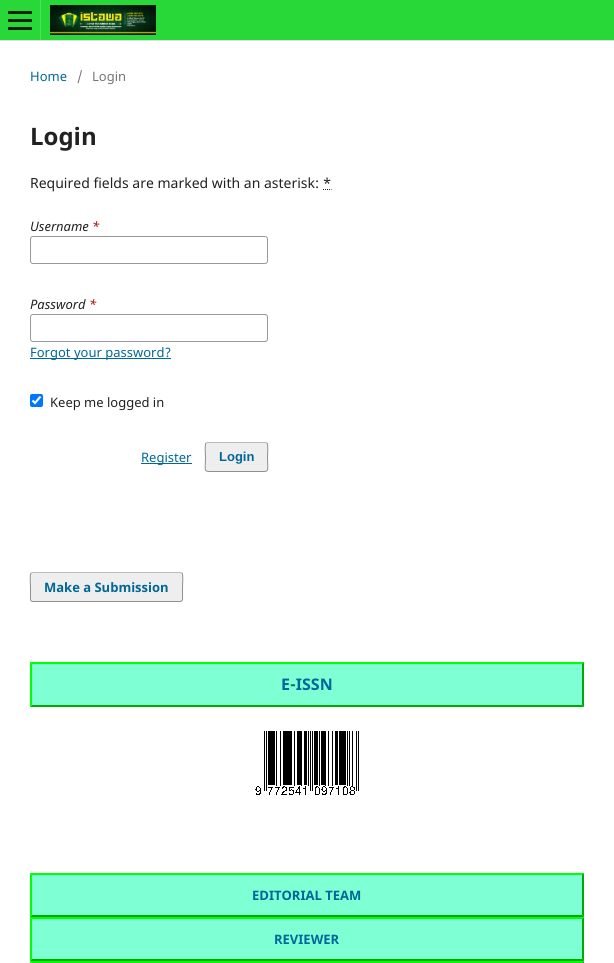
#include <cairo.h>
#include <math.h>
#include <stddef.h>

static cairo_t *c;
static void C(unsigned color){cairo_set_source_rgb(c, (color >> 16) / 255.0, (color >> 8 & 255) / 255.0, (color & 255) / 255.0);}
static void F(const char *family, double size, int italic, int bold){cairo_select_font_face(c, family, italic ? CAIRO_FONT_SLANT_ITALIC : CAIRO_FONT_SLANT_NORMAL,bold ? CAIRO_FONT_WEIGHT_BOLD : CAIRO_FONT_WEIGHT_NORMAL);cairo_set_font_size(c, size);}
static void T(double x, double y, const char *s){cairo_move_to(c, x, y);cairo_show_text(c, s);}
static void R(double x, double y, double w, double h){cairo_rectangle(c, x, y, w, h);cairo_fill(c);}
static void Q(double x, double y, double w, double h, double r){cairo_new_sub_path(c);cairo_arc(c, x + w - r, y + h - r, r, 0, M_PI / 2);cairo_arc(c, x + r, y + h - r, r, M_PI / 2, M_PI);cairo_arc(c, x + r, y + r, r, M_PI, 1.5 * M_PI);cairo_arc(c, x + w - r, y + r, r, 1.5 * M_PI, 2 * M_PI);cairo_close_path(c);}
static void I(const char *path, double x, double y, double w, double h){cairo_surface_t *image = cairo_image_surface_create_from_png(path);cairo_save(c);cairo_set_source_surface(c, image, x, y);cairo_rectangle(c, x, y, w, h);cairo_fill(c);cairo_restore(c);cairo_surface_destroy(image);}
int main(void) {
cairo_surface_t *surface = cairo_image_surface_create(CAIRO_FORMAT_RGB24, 614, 963);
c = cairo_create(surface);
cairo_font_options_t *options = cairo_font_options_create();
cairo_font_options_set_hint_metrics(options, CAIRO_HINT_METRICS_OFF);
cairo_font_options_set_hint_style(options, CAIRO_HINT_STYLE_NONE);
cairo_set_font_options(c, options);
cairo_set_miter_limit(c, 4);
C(0xffffff);
cairo_paint(c);
C(0x28d839);
R(0,0,614,40);
C(0xdddddd);
R(0,40,614,1);
C(0x53e061);
R(40,0,1,40);
C(0x062309);
R(8,27,24,3);
R(8,11,24,3);
R(8,19,24,3);
I("1.png",50,5,106,30);
F("Noto Sans",13,0,0);
C(0x006798);
T(30,81,"Home");
C(0x757575);
T(77,81,"/");
T(92,81,"Login");
F("Noto Sans",24,0,1);
C(0x212121);
T(30,145,"Login");
F("Noto Sans",14,0,0);
T(30,188,"Required fields are marked with an asterisk: *");
cairo_new_path(c);
cairo_move_to(c,323,189.5);
cairo_line_to(c,331.5,189.5);
cairo_set_line_width(c,1);
cairo_set_dash(c,(double[]){1,1},2,0);
cairo_stroke(c);
F("Noto Sans",13,1,0);
T(30,231,"Username");
C(0xa80000);
T(92,231,"*");
Q(30.5,236.5,237,27,2.5);
C(0x999999);
cairo_set_dash(c,NULL,0,0);
cairo_stroke(c);
C(0x212121);
T(30,309,"Password");
C(0xa80000);
T(89,309,"*");
Q(30.5,314.5,237,27,2.5);
C(0x999999);
cairo_stroke(c);
C(0x006798);
R(30,358,141,1);
F("Noto Sans",13,0,0);
T(30,357,"Forgot your password?");
C(0x0075ff);
Q(30,394,13,13,2);
cairo_fill(c);
cairo_new_path(c);
cairo_move_to(c,32.5,400.5);
cairo_line_to(c,35,403);
cairo_line_to(c,40.5,396.5);
C(0xffffff);
cairo_set_line_width(c,2.1);
cairo_stroke(c);
C(0x212121);
T(50,407,"Keep me logged in");
C(0x006798);
R(141,463,51,1);
T(141,462,"Register");
C(0xeeeeee);
Q(205,442,63,30,3);
cairo_fill(c);
cairo_new_path(c);
cairo_move_to(c,206,443);
cairo_line_to(c,208,442.5);
cairo_line_to(c,265,442.5);
cairo_line_to(c,267,443);
C(0xbbbbbb);
cairo_set_line_width(c,1);
cairo_stroke(c);
cairo_new_path(c);
cairo_move_to(c,267,443);
cairo_curve_to(c,268.5,445,267.5,454.5,267.5,457);
cairo_curve_to(c,267.5,473,271,471.5,255.5,471.5);
cairo_line_to(c,217.5,471.5);
cairo_curve_to(c,202,471.5,205.5,473,205.5,457);
cairo_curve_to(c,205.5,454.5,204.5,445,206,443);
cairo_set_source_rgba(c,0,0,0,0.4);
cairo_stroke(c);
F("Liberation Sans",13,0,1);
C(0x006798);
T(219,461,"Login");
C(0xeeeeee);
Q(30,572,153,30,3);
cairo_fill(c);
cairo_new_path(c);
cairo_move_to(c,31,573);
cairo_line_to(c,33,572.5);
cairo_line_to(c,180,572.5);
cairo_line_to(c,182,573);
C(0xbbbbbb);
cairo_stroke(c);
cairo_new_path(c);
cairo_move_to(c,182,573);
cairo_curve_to(c,183.5,575,182.5,584.5,182.5,587);
cairo_line_to(c,182.5,595);
cairo_curve_to(c,182.5,597,183.5,601.5,180,601.5);
cairo_line_to(c,33,601.5);
cairo_curve_to(c,29.5,601.5,30.5,597,30.5,595);
cairo_line_to(c,30.5,587);
cairo_curve_to(c,30.5,584.5,29.5,575,31,573);
cairo_set_source_rgba(c,0,0,0,0.4);
cairo_stroke(c);
F("Noto Sans",13,0,1);
C(0x006798);
T(44,592,"Make a Submission");
C(0x7fffd4);
R(30,662,554,45);
C(0x00ff00);
cairo_new_path(c);
cairo_move_to(c,30,662);
cairo_line_to(c,584,662);
cairo_line_to(c,582,664);
cairo_line_to(c,32,664);
cairo_close_path(c);
cairo_fill(c);
C(0x00aa00);
cairo_new_path(c);
cairo_move_to(c,584,662);
cairo_line_to(c,584,707);
cairo_line_to(c,582,705);
cairo_line_to(c,582,664);
cairo_close_path(c);
cairo_fill(c);
cairo_new_path(c);
cairo_move_to(c,584,707);
cairo_line_to(c,30,707);
cairo_line_to(c,32,705);
cairo_line_to(c,582,705);
cairo_close_path(c);
cairo_fill(c);
C(0x00ff00);
cairo_new_path(c);
cairo_move_to(c,30,707);
cairo_line_to(c,30,662);
cairo_line_to(c,32,664);
cairo_line_to(c,32,705);
cairo_close_path(c);
cairo_fill(c);
F("Noto Sans",16,0,1);
C(0x006798);
T(281,690,"E-ISSN");
I("2.png",255,731,104,64);
C(0x7fffd4);
R(30,873,554,88);
C(0x00ff00);
cairo_new_path(c);
cairo_move_to(c,30,873);
cairo_line_to(c,584,873);
cairo_line_to(c,582,875);
cairo_line_to(c,32,875);
cairo_close_path(c);
cairo_fill(c);
C(0x00aa00);
cairo_new_path(c);
cairo_move_to(c,584,873);
cairo_line_to(c,584,917);
cairo_line_to(c,582,915);
cairo_line_to(c,582,875);
cairo_close_path(c);
cairo_fill(c);
cairo_new_path(c);
cairo_move_to(c,584,917);
cairo_line_to(c,30,917);
cairo_line_to(c,32,915);
cairo_line_to(c,582,915);
cairo_close_path(c);
cairo_fill(c);
C(0x00ff00);
cairo_new_path(c);
cairo_move_to(c,30,917);
cairo_line_to(c,30,873);
cairo_line_to(c,32,875);
cairo_line_to(c,32,915);
cairo_close_path(c);
cairo_fill(c);
F("Noto Sans",13,0,1);
C(0x006798);
T(252,900,"EDITORIAL TEAM");
C(0x00ff00);
cairo_new_path(c);
cairo_move_to(c,30,917);
cairo_line_to(c,584,917);
cairo_line_to(c,582,919);
cairo_line_to(c,32,919);
cairo_close_path(c);
cairo_fill(c);
C(0x00aa00);
cairo_new_path(c);
cairo_move_to(c,584,917);
cairo_line_to(c,584,961);
cairo_line_to(c,582,959);
cairo_line_to(c,582,919);
cairo_close_path(c);
cairo_fill(c);
cairo_new_path(c);
cairo_move_to(c,584,961);
cairo_line_to(c,30,961);
cairo_line_to(c,32,959);
cairo_line_to(c,582,959);
cairo_close_path(c);
cairo_fill(c);
C(0x00ff00);
cairo_new_path(c);
cairo_move_to(c,30,961);
cairo_line_to(c,30,917);
cairo_line_to(c,32,919);
cairo_line_to(c,32,959);
cairo_close_path(c);
cairo_fill(c);
C(0x006798);
T(274,944,"REVIEWER");
C(0x00ff00);
cairo_new_path(c);
cairo_move_to(c,30,961);
cairo_line_to(c,584,961);
cairo_line_to(c,582,963);
cairo_line_to(c,32,963);
cairo_close_path(c);
cairo_fill(c);
C(0x00aa00);
cairo_new_path(c);
cairo_move_to(c,584,961);
cairo_line_to(c,584,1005);
cairo_line_to(c,582,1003);
cairo_line_to(c,582,963);
cairo_close_path(c);
cairo_fill(c);
C(0x00ff00);
cairo_new_path(c);
cairo_move_to(c,30,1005);
cairo_line_to(c,30,961);
cairo_line_to(c,32,963);
cairo_line_to(c,32,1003);
cairo_close_path(c);
cairo_fill(c);
cairo_surface_write_to_png(surface, "o.png");
cairo_font_options_destroy(options);
cairo_destroy(c);
cairo_surface_destroy(surface);
return 0;
}
